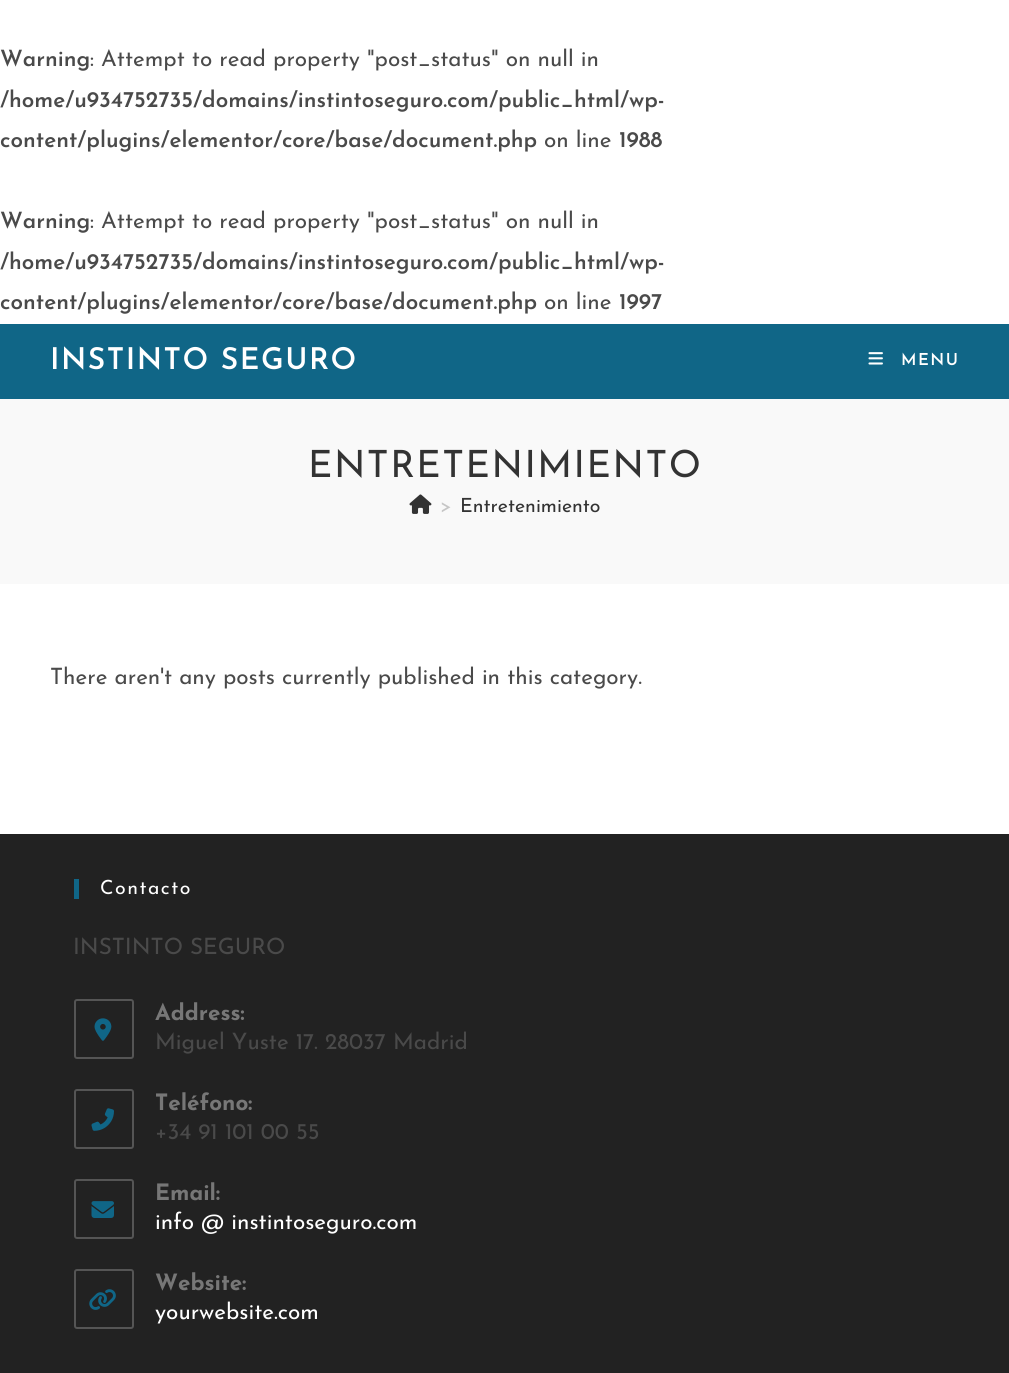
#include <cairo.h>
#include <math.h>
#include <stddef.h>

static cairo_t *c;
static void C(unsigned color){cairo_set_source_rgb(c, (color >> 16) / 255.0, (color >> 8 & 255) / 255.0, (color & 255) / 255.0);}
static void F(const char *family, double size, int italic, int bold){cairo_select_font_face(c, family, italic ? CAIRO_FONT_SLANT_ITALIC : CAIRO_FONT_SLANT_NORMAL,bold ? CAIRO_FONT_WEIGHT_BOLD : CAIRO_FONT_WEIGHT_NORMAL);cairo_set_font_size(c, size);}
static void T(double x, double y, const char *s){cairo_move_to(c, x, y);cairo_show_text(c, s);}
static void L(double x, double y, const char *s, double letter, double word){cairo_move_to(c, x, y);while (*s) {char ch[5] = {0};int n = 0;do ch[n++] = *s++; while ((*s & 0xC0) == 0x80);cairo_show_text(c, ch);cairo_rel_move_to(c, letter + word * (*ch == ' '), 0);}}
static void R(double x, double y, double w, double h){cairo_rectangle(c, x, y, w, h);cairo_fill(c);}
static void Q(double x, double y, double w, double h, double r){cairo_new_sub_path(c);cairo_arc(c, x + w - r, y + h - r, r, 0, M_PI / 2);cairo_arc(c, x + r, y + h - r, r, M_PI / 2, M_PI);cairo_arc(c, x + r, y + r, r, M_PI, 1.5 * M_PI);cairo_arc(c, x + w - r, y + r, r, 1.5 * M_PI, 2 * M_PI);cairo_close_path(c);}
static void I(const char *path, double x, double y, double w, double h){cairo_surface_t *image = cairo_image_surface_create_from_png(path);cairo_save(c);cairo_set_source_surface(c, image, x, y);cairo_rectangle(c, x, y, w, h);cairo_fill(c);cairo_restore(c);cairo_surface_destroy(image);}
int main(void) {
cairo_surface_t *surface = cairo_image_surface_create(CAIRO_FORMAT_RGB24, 1009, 1373);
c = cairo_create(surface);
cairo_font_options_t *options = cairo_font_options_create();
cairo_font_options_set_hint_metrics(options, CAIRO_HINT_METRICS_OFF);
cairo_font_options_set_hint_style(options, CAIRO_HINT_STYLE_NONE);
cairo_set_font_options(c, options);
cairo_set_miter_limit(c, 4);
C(0xffffff);
cairo_paint(c);
F("Josefin Sans SemiBold",22.5,0,0);
C(0x4a4a4a);
T(0,66,"Warning");
F("Josefin Sans",22.5,0,0);
T(90,66,": Attempt to read property \"post_status\" on null in");
F("Josefin Sans SemiBold",22.5,0,0);
T(0,107,"/home/u934752735/domains/instintoseguro.com/public_html/wp-");
T(0,147,"content/plugins/elementor/core/base/document.php");
F("Josefin Sans",22.5,0,0);
T(544,147,"on line");
F("Josefin Sans SemiBold",22.5,0,0);
T(619,147,"1988");
T(0,228,"Warning");
F("Josefin Sans",22.5,0,0);
T(90,228,": Attempt to read property \"post_status\" on null in");
F("Josefin Sans SemiBold",22.5,0,0);
T(0,269,"/home/u934752735/domains/instintoseguro.com/public_html/wp-");
T(0,309,"content/plugins/elementor/core/base/document.php");
F("Josefin Sans",22.5,0,0);
T(544,309,"on line");
F("Josefin Sans SemiBold",22.5,0,0);
T(619,309,"1997");
C(0x106687);
R(0,324,1009,75);
F("Josefin Sans SemiBold",30,0,0);
C(0xffffff);
L(50,369,"INSTINTO SEGURO",1.5,0);
I("1.png",868,352,15,13);
F("Josefin Sans SemiBold",16.5,0,0);
L(901,365,"MENU",1.5,0);
C(0xf9f9f9);
R(0,399,1009,185);
F("Josefin Sans",37.5,0,0);
C(0x333333);
L(308,477,"ENTRETENIMIENTO",1.5,0);
I("2.png",409,494,23,20);
F("Josefin Sans",19.5,0,0);
C(0xc6c6c6);
T(440,512,">");
C(0x333333);
T(460,512,"Entretenimiento");
F("Josefin Sans",22.5,0,0);
C(0x4a4a4a);
T(50,684,"There aren't any posts currently published in this category.");
C(0x222222);
R(0,834,1009,539);
C(0x106687);
R(74,879,5,20);
F("Josefin Sans",19.5,0,0);
C(0xffffff);
L(100,894,"Contacto",1.5,0);
F("Josefin Sans",22.5,0,0);
C(0x4a4a4a);
T(73,954,"INSTINTO SEGURO");
Q(75,1000,58,58,2);
C(0x555555);
cairo_stroke(c);
I("3.png",94,1018,18,23);
F("Josefin Sans",22.5,0,1);
C(0x777777);
T(155,1020,"Address:");
F("Josefin Sans",22.5,0,0);
C(0x4a4a4a);
T(155,1049,"Miguel Yuste 17. 28037 Madrid");
Q(75,1090,58,58,2);
C(0x555555);
cairo_stroke(c);
I("4.png",91,1108,23,23);
F("Josefin Sans",22.5,0,1);
C(0x777777);
T(155,1110,"Teléfono:");
F("Josefin Sans",22.5,0,0);
C(0x4a4a4a);
T(155,1139,"+34 91 101 00 55");
Q(75,1180,58,58,2);
C(0x555555);
cairo_stroke(c);
I("5.png",91,1201,23,17);
F("Josefin Sans",22.5,0,1);
C(0x777777);
T(155,1200,"Email:");
F("Josefin Sans",22.5,0,0);
C(0xffffff);
T(155,1229,"info @ instintoseguro.com");
Q(75,1270,58,58,2);
C(0x555555);
cairo_stroke(c);
I("6.png",89,1289,27,21);
F("Josefin Sans",22.5,0,1);
C(0x777777);
T(155,1290,"Website:");
F("Josefin Sans",22.5,0,0);
C(0xffffff);
T(155,1319,"yourwebsite.com");
cairo_surface_write_to_png(surface, "o.png");
cairo_font_options_destroy(options);
cairo_destroy(c);
cairo_surface_destroy(surface);
return 0;
}
